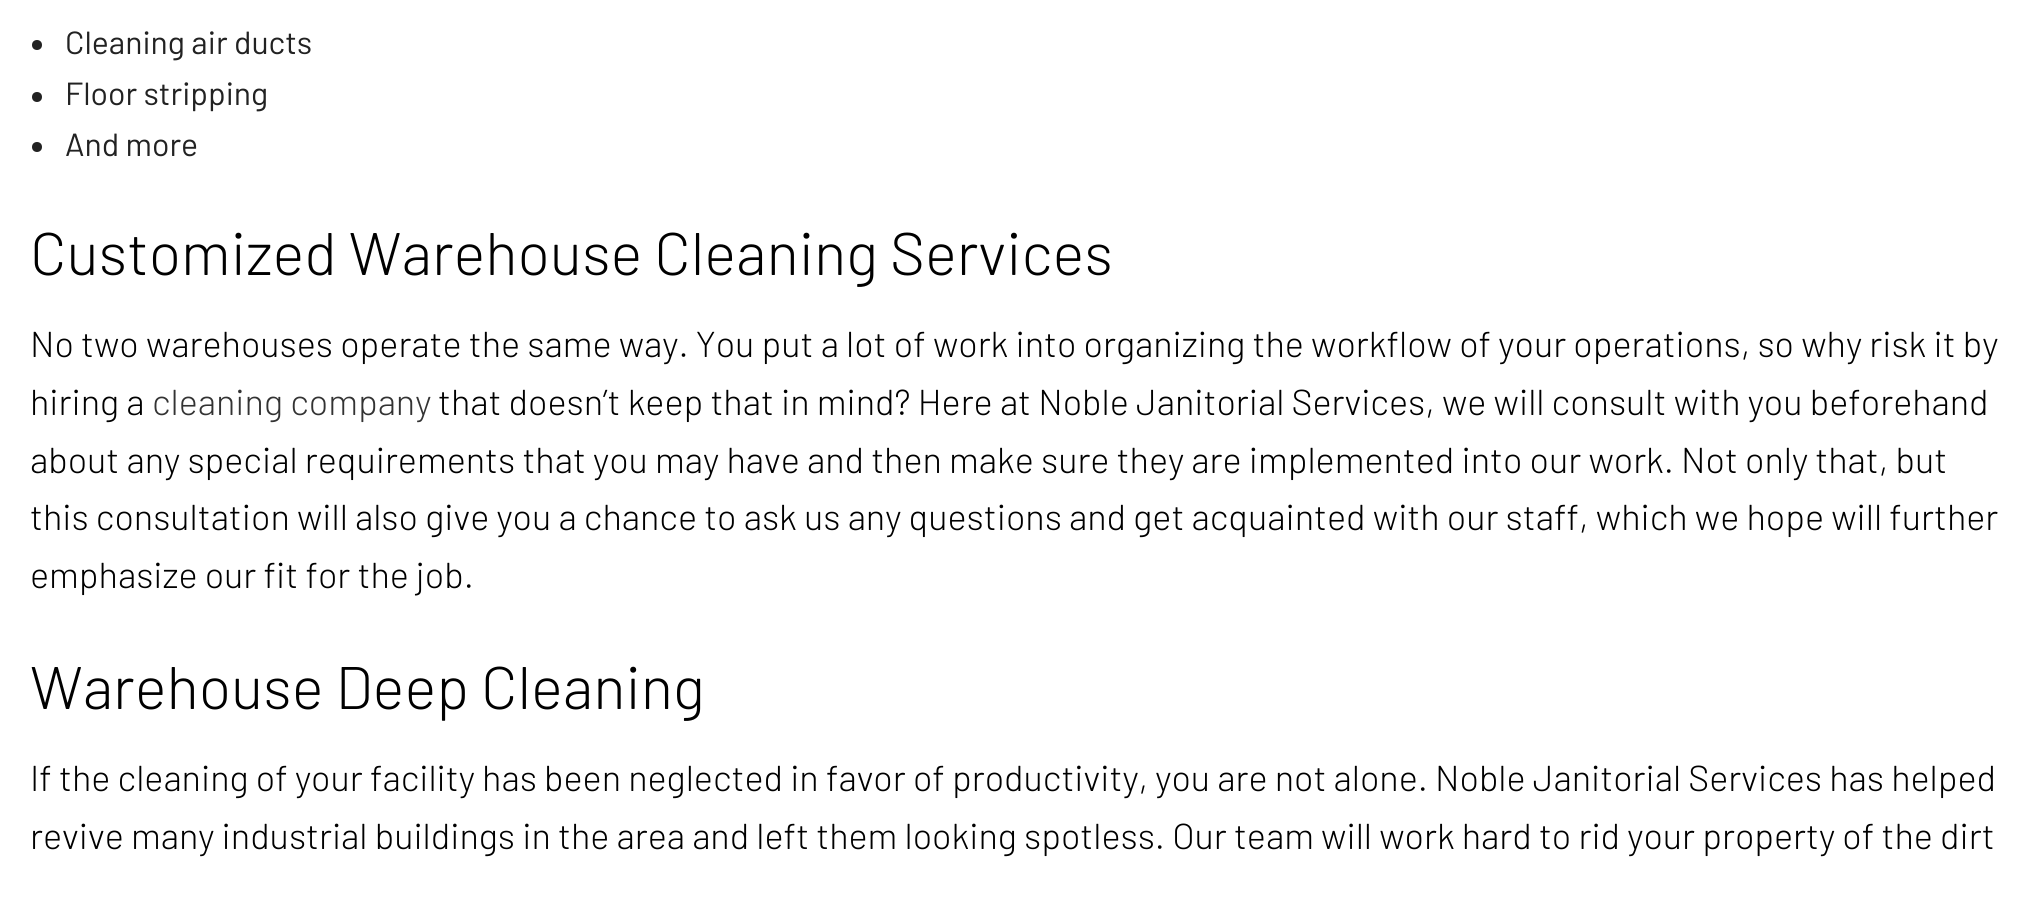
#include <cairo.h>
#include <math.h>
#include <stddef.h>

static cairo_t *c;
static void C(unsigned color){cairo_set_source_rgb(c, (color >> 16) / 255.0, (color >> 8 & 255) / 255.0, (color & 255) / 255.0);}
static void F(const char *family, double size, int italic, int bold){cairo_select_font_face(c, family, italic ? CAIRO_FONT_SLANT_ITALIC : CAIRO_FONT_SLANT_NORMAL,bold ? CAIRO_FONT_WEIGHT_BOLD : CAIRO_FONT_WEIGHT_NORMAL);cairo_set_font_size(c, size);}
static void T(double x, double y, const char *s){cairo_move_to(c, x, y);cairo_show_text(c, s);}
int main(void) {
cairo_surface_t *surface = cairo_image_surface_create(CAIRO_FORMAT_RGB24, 2031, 897);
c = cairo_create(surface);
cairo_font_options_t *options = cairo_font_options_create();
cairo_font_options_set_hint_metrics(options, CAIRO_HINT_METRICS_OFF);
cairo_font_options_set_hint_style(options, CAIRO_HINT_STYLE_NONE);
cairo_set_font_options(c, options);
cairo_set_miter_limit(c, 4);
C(0xffffff);
cairo_paint(c);
C(0x222222);
cairo_arc(c,37,45,5,0,2 * M_PI);
cairo_fill(c);
F("Barlow",32,0,0);
T(65,54,"Cleaning air ducts");
cairo_new_path(c);
cairo_arc(c,37,97,5,0,2 * M_PI);
cairo_fill(c);
T(65,105,"Floor stripping");
cairo_new_path(c);
cairo_arc(c,37,147,5,0,2 * M_PI);
cairo_fill(c);
T(65,156,"And more");
F("Barlow Light",60,0,0);
C(0x000000);
T(30,275,"Customized Warehouse Cleaning Services");
F("Barlow Light",36,0,0);
T(30,357,"No two warehouses operate the same way. You put a lot of work into organizing the workflow of your operations, so why risk it by");
T(30,415,"hiring a");
C(0x333333);
T(152,415,"cleaning company");
C(0x000000);
T(438,415,"that doesn’t keep that in mind? Here at Noble Janitorial Services, we will consult with you beforehand");
T(30,473,"about any special requirements that you may have and then make sure they are implemented into our work. Not only that, but");
T(30,530,"this consultation will also give you a chance to ask us any questions and get acquainted with our staff, which we hope will further");
T(30,588,"emphasize our fit for the job.");
F("Barlow Light",60,0,0);
T(30,709,"Warehouse Deep Cleaning");
F("Barlow Light",36,0,0);
T(30,791,"If the cleaning of your facility has been neglected in favor of productivity, you are not alone. Noble Janitorial Services has helped");
T(30,849,"revive many industrial buildings in the area and left them looking spotless. Our team will work hard to rid your property of the dirt");
cairo_surface_write_to_png(surface, "o.png");
cairo_font_options_destroy(options);
cairo_destroy(c);
cairo_surface_destroy(surface);
return 0;
}
